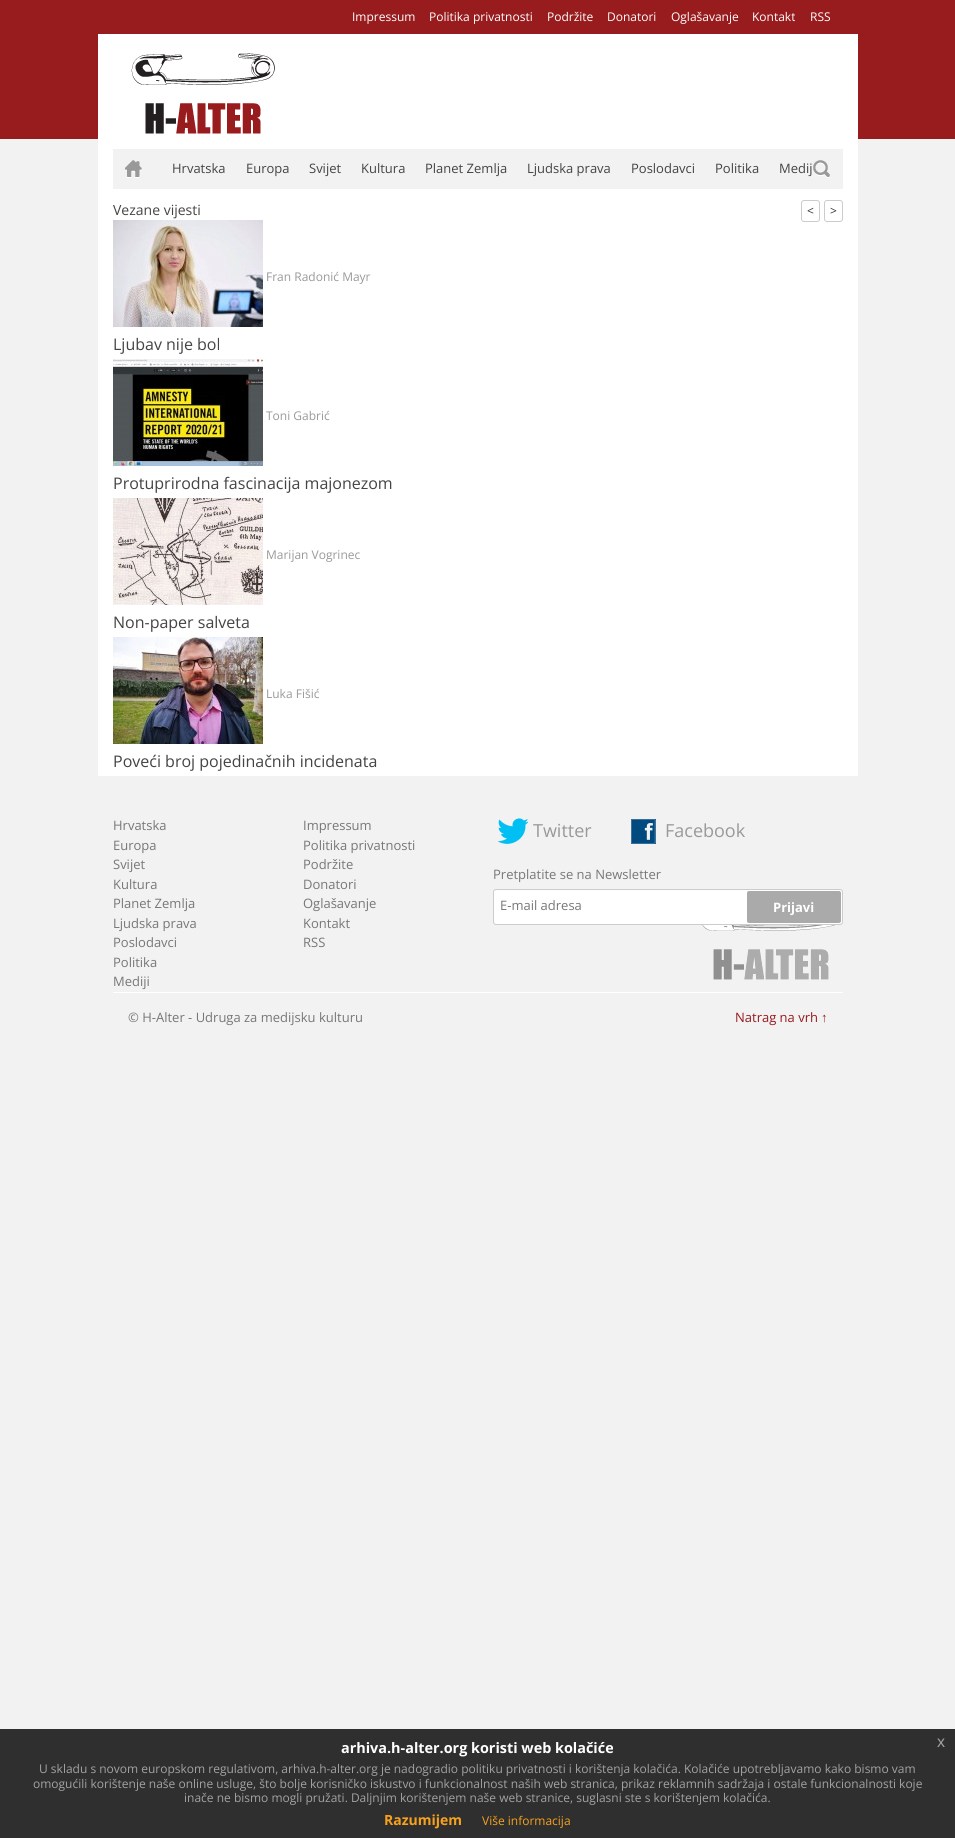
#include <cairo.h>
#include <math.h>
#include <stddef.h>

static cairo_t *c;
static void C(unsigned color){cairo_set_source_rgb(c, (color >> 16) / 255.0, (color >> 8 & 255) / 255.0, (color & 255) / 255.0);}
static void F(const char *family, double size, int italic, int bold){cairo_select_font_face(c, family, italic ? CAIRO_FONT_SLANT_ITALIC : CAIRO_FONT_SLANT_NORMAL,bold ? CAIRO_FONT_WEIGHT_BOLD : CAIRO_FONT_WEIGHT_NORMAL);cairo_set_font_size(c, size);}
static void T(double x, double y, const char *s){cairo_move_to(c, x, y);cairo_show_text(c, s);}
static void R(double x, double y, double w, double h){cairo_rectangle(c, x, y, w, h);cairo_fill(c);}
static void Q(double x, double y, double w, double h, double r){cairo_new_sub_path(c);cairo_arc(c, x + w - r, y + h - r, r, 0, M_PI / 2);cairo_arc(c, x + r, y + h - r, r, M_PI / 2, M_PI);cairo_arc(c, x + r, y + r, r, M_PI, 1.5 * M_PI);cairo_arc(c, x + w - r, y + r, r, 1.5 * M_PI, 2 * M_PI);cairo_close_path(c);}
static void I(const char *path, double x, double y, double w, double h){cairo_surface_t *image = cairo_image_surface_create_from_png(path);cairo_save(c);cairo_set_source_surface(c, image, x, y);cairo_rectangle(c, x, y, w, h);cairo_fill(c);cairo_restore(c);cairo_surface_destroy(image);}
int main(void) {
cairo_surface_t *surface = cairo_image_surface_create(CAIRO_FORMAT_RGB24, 955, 1838);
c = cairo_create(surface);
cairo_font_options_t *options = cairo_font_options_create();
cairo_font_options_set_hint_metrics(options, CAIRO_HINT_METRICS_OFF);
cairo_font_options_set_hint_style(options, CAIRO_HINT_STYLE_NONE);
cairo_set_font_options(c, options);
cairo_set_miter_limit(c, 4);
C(0xf2f2f2);
cairo_paint(c);
C(0x981b1e);
R(0,0,955,139);
F("Open Sans",12,0,0);
C(0xffffff);
T(352,21,"Impressum");
T(429,21,"Politika privatnosti");
T(547,21,"Podržite");
T(607,21,"Donatori");
T(671,21,"Oglašavanje");
T(752,21,"Kontakt");
T(810,21,"RSS");
R(98,34,760,742);
I("1.png",131,53,144,81);
C(0xf2f2f2);
R(113,149,730,40);
I("2.png",125,160,17,18);
F("Open Sans",13,0,0);
C(0x444444);
T(172,173,"Hrvatska");
T(246,173,"Europa");
T(309,173,"Svijet");
T(361,173,"Kultura");
T(425,173,"Planet Zemlja");
T(527,173,"Ljudska prava");
T(631,173,"Poslodavci");
T(715,173,"Politika");
T(779,173,"Medij");
I("3.png",813,160,17,18);
F("Open Sans",14,0,0);
T(113,215,"Vezane vijesti");
Q(801.5,200.5,18,21,2.5);
C(0xcccccc);
cairo_set_line_width(c,1);
cairo_stroke(c);
F("Open Sans",12,0,0);
C(0x333333);
T(807,215,"<");
Q(824.5,200.5,18,21,2.5);
C(0xcccccc);
cairo_stroke(c);
C(0x333333);
T(830,215,">");
I("4.png",113,220,150,107);
C(0x999999);
T(266,281,"Fran Radonić Mayr");
F("Open Sans",16,0,0);
C(0x444444);
T(113,350,"Ljubav nije bol");
I("5.png",113,359,150,107);
F("Open Sans",12,0,0);
C(0x999999);
T(266,420,"Toni Gabrić");
F("Open Sans",16,0,0);
C(0x444444);
T(113,489,"Protuprirodna fascinacija majonezom");
I("6.png",113,498,150,107);
F("Open Sans",12,0,0);
C(0x999999);
T(266,559,"Marijan Vogrinec");
F("Open Sans",16,0,0);
C(0x444444);
T(113,628,"Non-paper salveta");
I("7.png",113,637,150,107);
F("Open Sans",12,0,0);
C(0x999999);
T(266,698,"Luka Fišić");
F("Open Sans",16,0,0);
C(0x444444);
T(113,767,"Poveći broj pojedinačnih incidenata");
I("8.png",702,925,134,55);
F("Open Sans",13,0,0);
C(0x777777);
T(113,830,"Hrvatska");
T(113,850,"Europa");
T(113,869,"Svijet");
T(113,889,"Kultura");
T(113,908,"Planet Zemlja");
T(113,928,"Ljudska prava");
T(113,947,"Poslodavci");
T(113,967,"Politika");
T(113,986,"Mediji");
T(303,830,"Impressum");
T(303,850,"Politika privatnosti");
T(303,869,"Podržite");
T(303,889,"Donatori");
T(303,908,"Oglašavanje");
T(303,928,"Kontakt");
T(303,947,"RSS");
I("9.png",497,818,32,26);
F("Open Sans",18,0,0);
C(0x999999);
T(533,837,"Twitter");
I("10.png",631,819,25,25);
T(665,837,"Facebook");
F("Open Sans",13,0,0);
C(0x777777);
T(493,879,"Pretplatite se na Newsletter");
C(0xffffff);
Q(493.5,889.5,349,35,2.5);
cairo_fill_preserve(c);
C(0xcccccc);
cairo_stroke(c);
C(0x777777);
T(500,910,"E-mail adresa");
C(0xaaaaaa);
Q(747,891,94,32,2);
cairo_fill(c);
F("Open Sans",13,0,1);
C(0xffffff);
T(773,912,"Prijavi");
R(113,992,730,1);
F("Open Sans",13,0,0);
C(0x777777);
T(128,1022,"© H-Alter - Udruga za medijsku kulturu");
C(0x981b1e);
T(735,1022,"Natrag na vrh");
F("Liberation Sans",13,0,0);
T(821,1022,"↑");
C(0x2f2f2f);
R(0,1729,955,109);
F("Open Sans",14.4,0,1);
C(0xffffff);
T(341,1753,"arhiva.h-alter.org koristi web kolačiće");
F("Liberation Sans",16,0,0);
C(0xa2a2a2);
T(937,1747,"x");
F("Open Sans",12,0,0);
T(39,1773,"U skladu s novom europskom regulativom, arhiva.h-alter.org je nadogradio politiku privatnosti i korištenja kolačića. Kolačiće upotrebljavamo kako bismo vam");
T(33,1788,"omogućili korištenje naše online usluge, što bolje korisničko iskustvo i funkcionalnost naših web stranica, prikaz reklamnih sadržaja i ostale funkcionalnosti koje");
T(184,1802,"inače ne bismo mogli pružati. Daljnjim korištenjem naše web stranice, suglasni ste s korištenjem kolačića.");
F("Open Sans",14,0,1);
C(0xf6a21d);
T(384,1825,"Razumijem");
F("Open Sans",12,0,0);
T(482,1825,"Više informacija");
cairo_surface_write_to_png(surface, "o.png");
cairo_font_options_destroy(options);
cairo_destroy(c);
cairo_surface_destroy(surface);
return 0;
}
